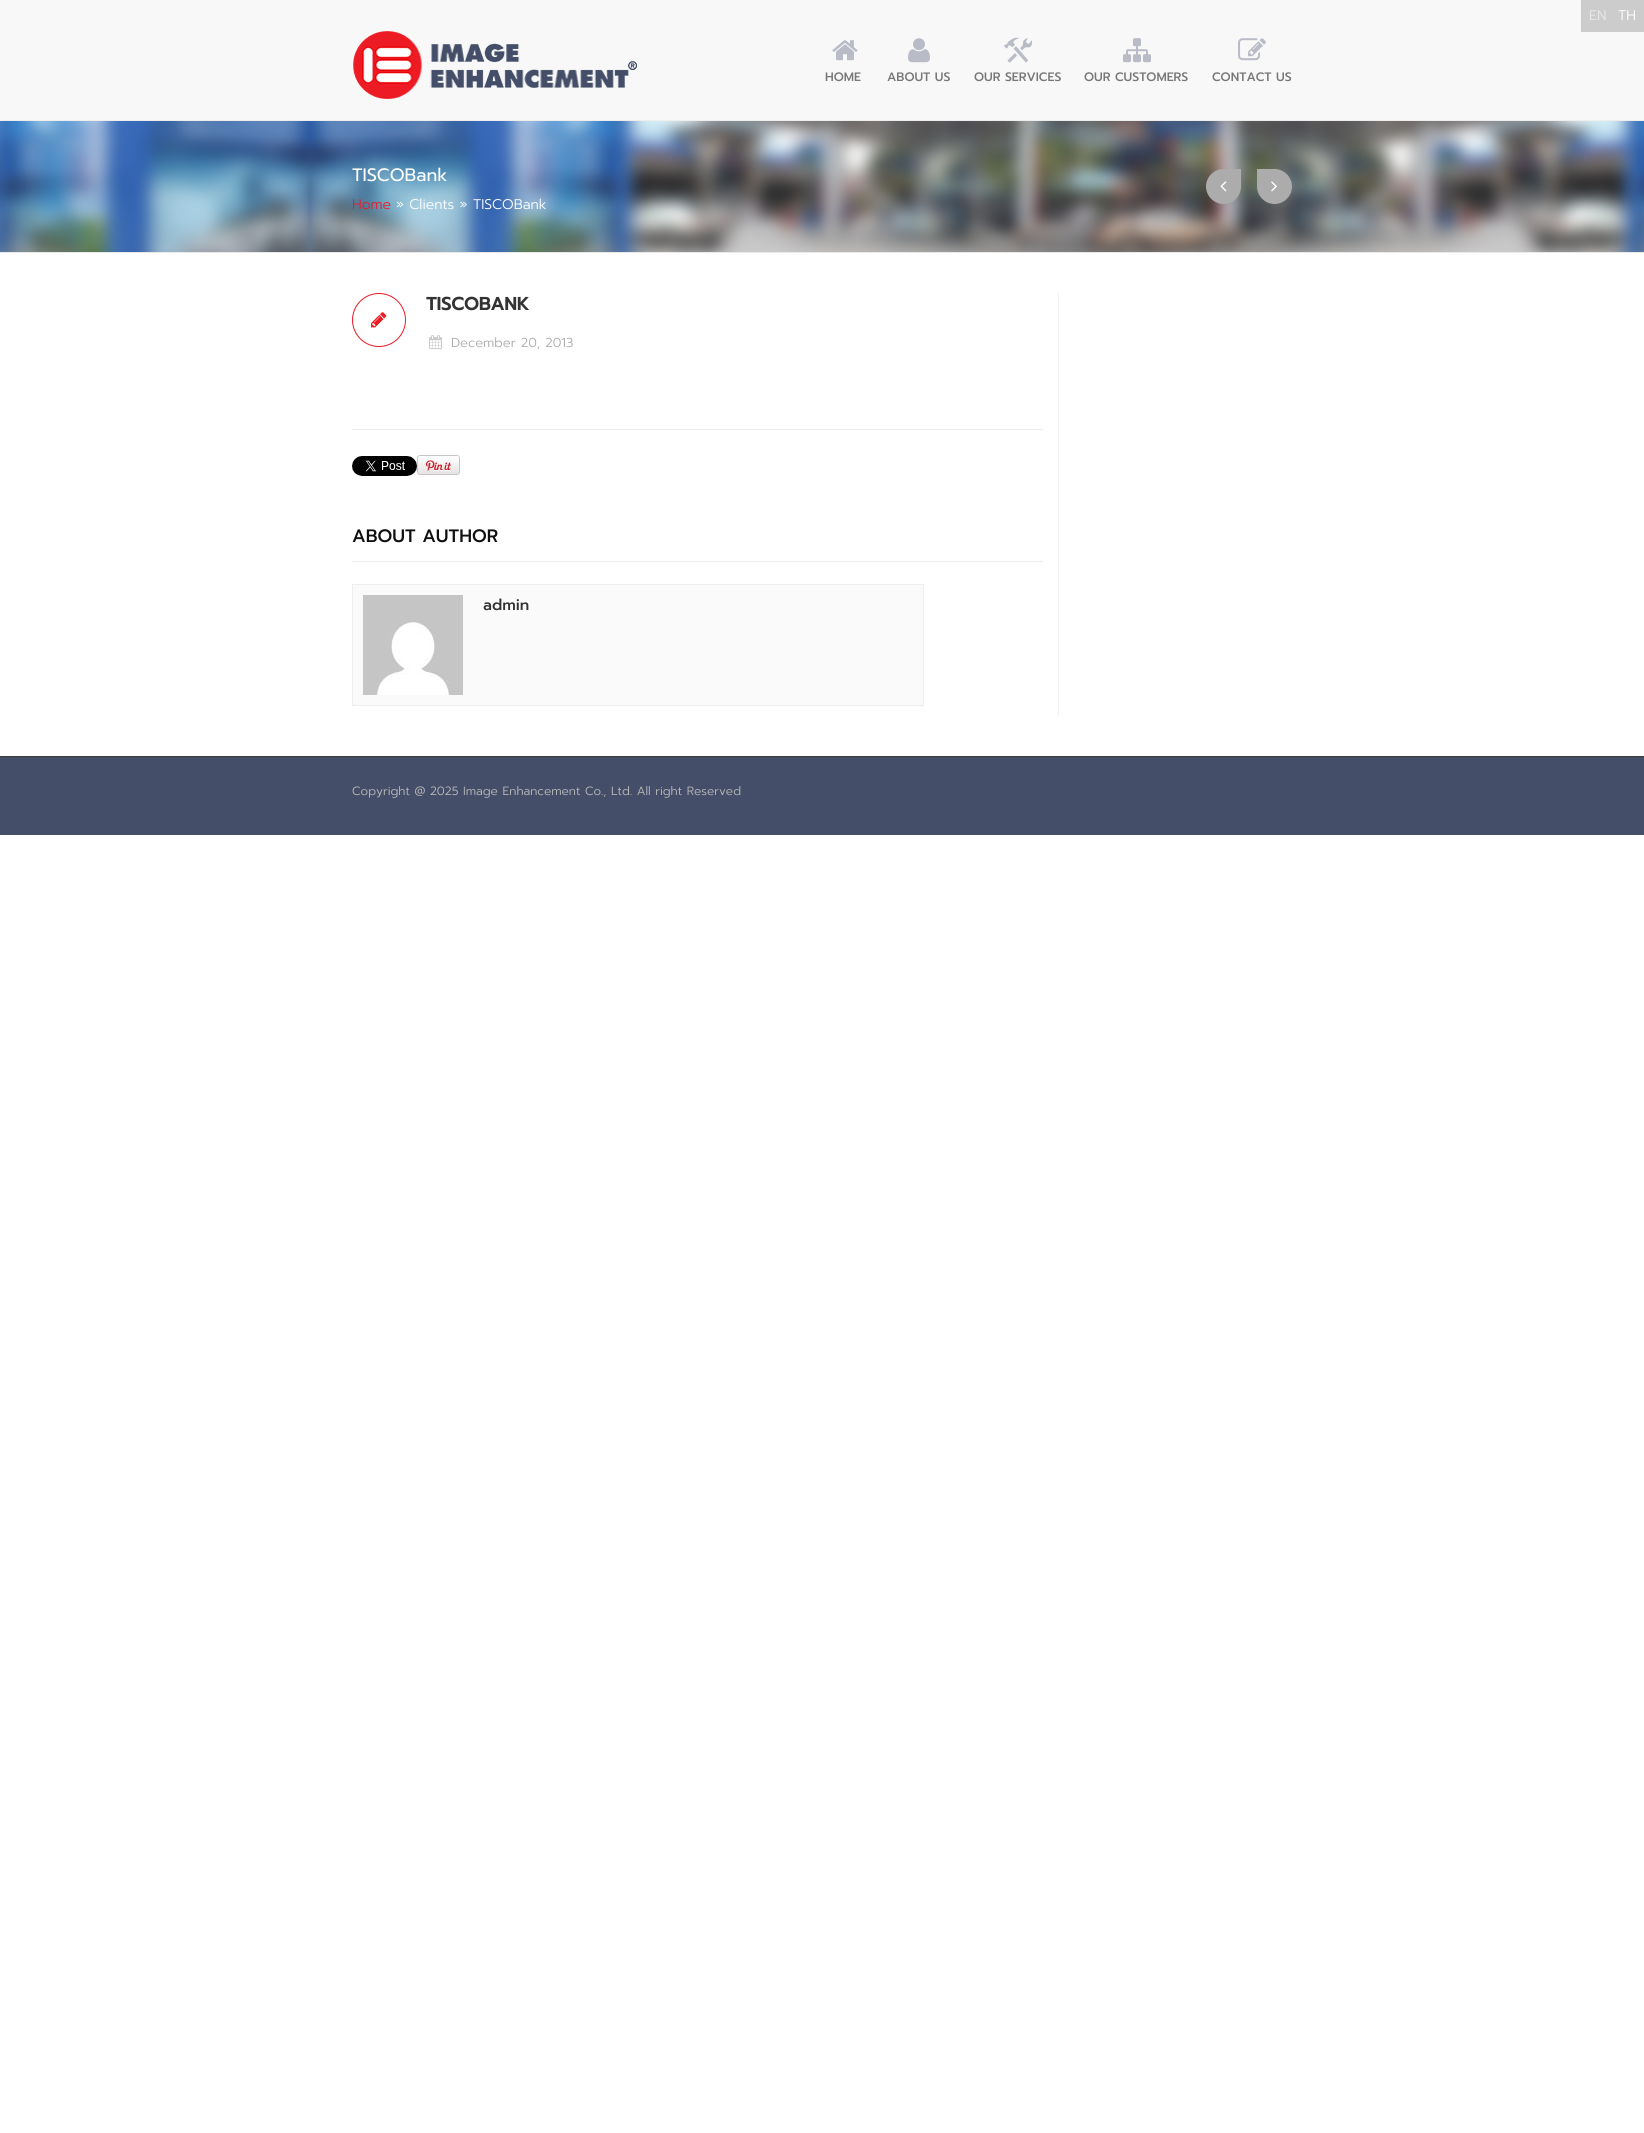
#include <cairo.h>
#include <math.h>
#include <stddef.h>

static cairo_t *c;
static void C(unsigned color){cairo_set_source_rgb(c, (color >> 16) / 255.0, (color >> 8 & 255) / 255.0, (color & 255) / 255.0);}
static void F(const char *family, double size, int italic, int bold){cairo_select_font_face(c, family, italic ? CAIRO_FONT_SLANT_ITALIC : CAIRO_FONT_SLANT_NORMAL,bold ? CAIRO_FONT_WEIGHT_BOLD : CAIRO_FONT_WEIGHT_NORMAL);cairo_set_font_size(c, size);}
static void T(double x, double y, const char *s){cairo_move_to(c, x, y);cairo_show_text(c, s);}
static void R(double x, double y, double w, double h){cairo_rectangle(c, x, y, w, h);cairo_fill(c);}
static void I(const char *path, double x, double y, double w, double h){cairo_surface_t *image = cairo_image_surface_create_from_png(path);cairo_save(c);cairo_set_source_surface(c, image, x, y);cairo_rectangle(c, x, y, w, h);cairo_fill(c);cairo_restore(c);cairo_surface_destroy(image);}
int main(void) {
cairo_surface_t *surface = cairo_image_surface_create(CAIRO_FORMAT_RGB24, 1644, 2133);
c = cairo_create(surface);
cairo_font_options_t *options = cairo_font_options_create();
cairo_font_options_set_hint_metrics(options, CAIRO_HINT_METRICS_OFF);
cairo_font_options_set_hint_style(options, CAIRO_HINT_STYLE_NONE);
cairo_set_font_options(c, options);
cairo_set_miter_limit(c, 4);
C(0xffffff);
cairo_paint(c);
C(0xf8f8f8);
R(0,0,1644,120);
C(0xcccccc);
R(1581,0,63,32);
F("Prompt Light",14,0,0);
C(0xe9e9e9);
T(1589,20,"EN");
C(0xffffff);
T(1618,20,"TH");
I("1.png",353,31,284,68);
I("2.png",832,40,26,21);
F("Prompt Medium",12.25,0,0);
C(0x777777);
T(825,81,"HOME");
I("3.png",908,38,22,25);
T(887,81,"ABOUT US");
I("4.png",1004,37,28,26);
T(974,81,"OUR SERVICES");
I("5.png",1123,38,28,25);
T(1084,81,"OUR CUSTOMERS");
I("6.png",1238,38,28,23);
T(1212,81,"CONTACT US");
C(0xeeeeee);
R(0,120,1644,1);
I("7.png",0,121,1644,131);
C(0xe9e9e9);
R(0,252,1644,1);
F("Prompt",18,0,0);
C(0xffffff);
T(352,181,"TISCOBank");
F("Prompt Light",14,0,0);
C(0xed1b24);
T(352,209,"Home");
C(0xffffff);
T(396,209,"» Clients » TISCOBank");
C(0xacacac);
cairo_new_path(c);
cairo_move_to(c,1223.5,169);
cairo_line_to(c,1241,169);
cairo_line_to(c,1241,186.5);
cairo_curve_to(c,1241,196,1233,204,1223.5,204);
cairo_curve_to(c,1214,204,1206,196,1206,186.5);
cairo_curve_to(c,1206,177,1214,169,1223.5,169);
cairo_close_path(c);
cairo_fill(c);
I("8.png",1220,181,7,11);
cairo_new_path(c);
cairo_move_to(c,1257,169);
cairo_line_to(c,1274.5,169);
cairo_curve_to(c,1284,169,1292,177,1292,186.5);
cairo_curve_to(c,1292,196,1284,204,1274.5,204);
cairo_curve_to(c,1265,204,1257,196,1257,186.5);
cairo_close_path(c);
cairo_fill(c);
I("9.png",1271,181,6,11);
C(0xf1f1f1);
R(1058,293,1,423);
cairo_arc(c,379,320,26.5,0,2 * M_PI);
C(0xed1b24);
cairo_set_line_width(c,1);
cairo_stroke(c);
I("10.png",371,312,16,16);
F("Prompt",18,0,1);
C(0x333333);
T(426,310,"TISCOBANK");
I("11.png",429,335,13,15);
F("Prompt Light",13,0,0);
C(0xaaaaaa);
T(451,347,"December 20, 2013");
C(0xececec);
R(352,429,691,1);
I("12.png",352,456,65,20);
I("13.png",417,455,43,20);
C(0xeeeeee);
R(352,561,691,1);
F("Prompt Medium",18,0,0);
C(0x101010);
T(352,542,"ABOUT AUTHOR");
C(0xfafafa);
cairo_rectangle(c,352.5,584.5,571,121);
cairo_fill_preserve(c);
C(0xeeeeee);
cairo_stroke(c);
I("14.png",363,595,100,100);
F("Prompt Medium",15.5,0,0);
C(0x333333);
T(483,610,"admin");
C(0x444e69);
R(0,757,1644,78);
C(0x3c3c3c);
R(0,756,1644,1);
F("Prompt Light",12,0,0);
C(0xbbbbbb);
T(352,795,"Copyright @ 2025 Image Enhancement Co., Ltd. All right Reserved");
cairo_surface_write_to_png(surface, "o.png");
cairo_font_options_destroy(options);
cairo_destroy(c);
cairo_surface_destroy(surface);
return 0;
}
